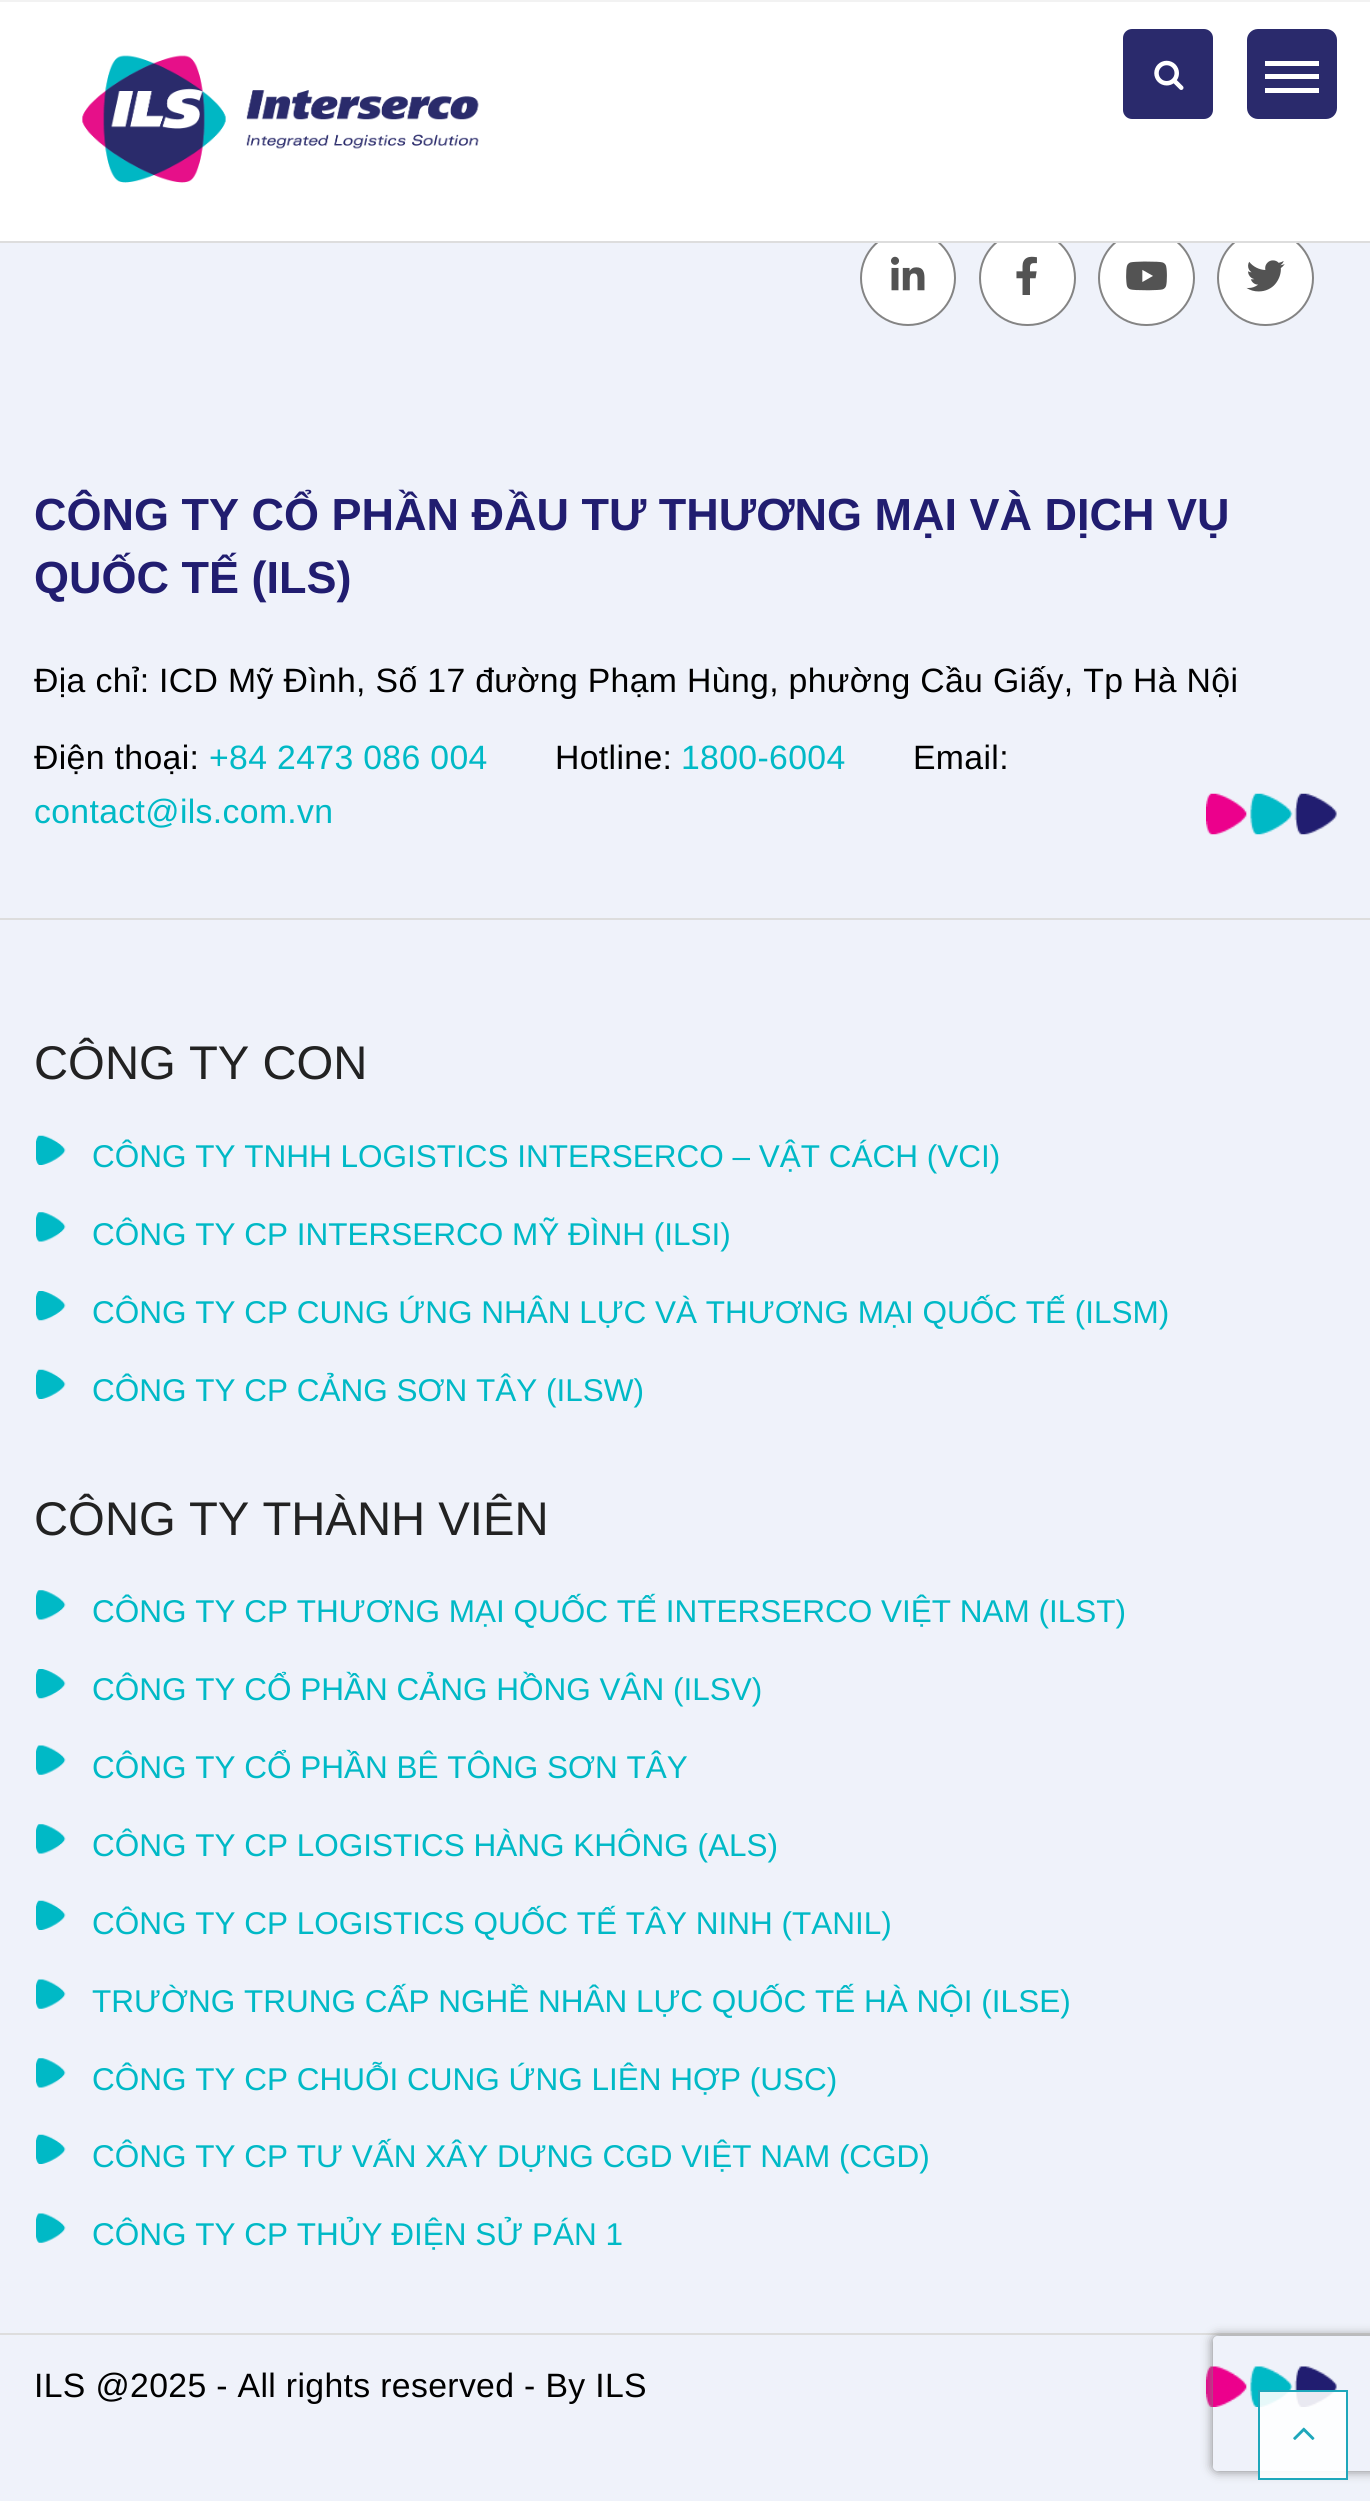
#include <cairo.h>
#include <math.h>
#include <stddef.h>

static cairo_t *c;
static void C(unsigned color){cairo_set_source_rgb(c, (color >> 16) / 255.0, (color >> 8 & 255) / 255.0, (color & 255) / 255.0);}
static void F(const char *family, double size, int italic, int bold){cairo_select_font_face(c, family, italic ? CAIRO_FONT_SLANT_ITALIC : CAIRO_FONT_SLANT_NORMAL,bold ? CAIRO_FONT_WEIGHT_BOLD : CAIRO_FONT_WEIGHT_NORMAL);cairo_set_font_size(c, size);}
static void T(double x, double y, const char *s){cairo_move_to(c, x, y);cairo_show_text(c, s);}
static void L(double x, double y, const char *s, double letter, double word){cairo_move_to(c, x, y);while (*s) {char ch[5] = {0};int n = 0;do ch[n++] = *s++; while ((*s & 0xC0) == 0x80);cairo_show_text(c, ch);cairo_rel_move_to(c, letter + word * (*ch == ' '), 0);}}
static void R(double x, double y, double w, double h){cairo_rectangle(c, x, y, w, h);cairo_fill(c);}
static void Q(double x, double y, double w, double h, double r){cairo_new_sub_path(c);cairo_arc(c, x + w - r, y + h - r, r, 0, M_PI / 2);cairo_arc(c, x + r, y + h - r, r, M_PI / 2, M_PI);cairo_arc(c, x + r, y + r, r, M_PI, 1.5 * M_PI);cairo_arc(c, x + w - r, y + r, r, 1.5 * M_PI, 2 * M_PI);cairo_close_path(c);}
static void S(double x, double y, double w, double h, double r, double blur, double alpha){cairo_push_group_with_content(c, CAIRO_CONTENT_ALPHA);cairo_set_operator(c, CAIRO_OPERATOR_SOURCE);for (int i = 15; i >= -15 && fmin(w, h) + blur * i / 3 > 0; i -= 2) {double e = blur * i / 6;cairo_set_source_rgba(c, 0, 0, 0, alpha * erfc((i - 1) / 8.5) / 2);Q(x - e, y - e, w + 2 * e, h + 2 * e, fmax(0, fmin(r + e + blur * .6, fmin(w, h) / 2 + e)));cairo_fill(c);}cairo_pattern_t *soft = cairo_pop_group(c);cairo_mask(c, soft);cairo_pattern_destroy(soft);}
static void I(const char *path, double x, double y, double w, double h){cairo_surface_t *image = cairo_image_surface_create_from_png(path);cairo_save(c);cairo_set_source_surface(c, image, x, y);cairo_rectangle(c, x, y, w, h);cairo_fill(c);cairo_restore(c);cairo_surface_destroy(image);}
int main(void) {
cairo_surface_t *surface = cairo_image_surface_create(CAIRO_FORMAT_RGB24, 1370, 2501);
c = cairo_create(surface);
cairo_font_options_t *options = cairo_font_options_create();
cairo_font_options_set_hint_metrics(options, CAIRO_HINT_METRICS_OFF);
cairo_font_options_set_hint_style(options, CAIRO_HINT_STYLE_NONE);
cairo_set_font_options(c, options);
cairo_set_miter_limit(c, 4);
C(0xeff2fa);
cairo_paint(c);
C(0xffffff);
cairo_arc(c,908,278,47,0,2 * M_PI);
cairo_fill_preserve(c);
C(0x848484);
cairo_stroke(c);
C(0xffffff);
Q(980,231,95,94,47);
cairo_fill_preserve(c);
C(0x848484);
cairo_stroke(c);
C(0xffffff);
Q(1099,231,95,94,47);
cairo_fill_preserve(c);
C(0x848484);
cairo_stroke(c);
C(0xffffff);
Q(1218,231,95,94,47);
cairo_fill_preserve(c);
C(0x848484);
cairo_stroke(c);
C(0xffffff);
R(0,2,1370,239);
C(0xdddddd);
R(0,241,1370,2);
C(0xf2f2f2);
R(0,0,1370,2);
I("1.png",82,55,397,128);
C(0x2a2a6c);
Q(1123,29,90,90,9);
cairo_fill(c);
I("2.png",1154,60,30,30);
Q(1247,29,90,90,11);
cairo_fill(c);
C(0xffffff);
R(1265,61,54,5);
R(1265,74,54,5);
R(1265,88,54,5);
I("3.png",891,256,34,35);
I("4.png",1016,256,21,39);
I("5.png",1126,261,41,30);
I("6.png",1246,260,39,32);
C(0xdddddd);
R(0,918,1370,2);
F("Liberation Sans",45,0,1);
C(0x211d70);
T(34,530,"CÔNG TY CỔ PHẦN ĐẦU TƯ THƯƠNG MẠI VÀ DỊCH VỤ");
T(34,593,"QUỐC TẾ (ILS)");
F("Liberation Sans",33.75,0,0);
C(0x000000);
L(34,692,"Địa chỉ: ICD Mỹ Đình, Số 17 đường Phạm Hùng, phường Cầu Giấy, Tp Hà Nội",.35,0);
L(34,769,"Điện thoại:",.35,0);
C(0x00b9c6);
L(209,769,"+84 2473 086 004",.35,0);
C(0x000000);
L(555,769,"Hotline:",.35,0);
C(0x00b9c6);
L(681,769,"1800-6004",.35,0);
C(0x000000);
L(913,769,"Email:",.35,0);
C(0x00b9c6);
L(34,823,"contact@ils.com.vn",.35,0);
I("7.png",1206,793,131,42);
C(0xdddddd);
R(0,2333,1370,2);
F("Liberation Sans",47.25,0,0);
C(0x222222);
T(34,1079,"CÔNG TY CON");
I("8.png",36,1135,30,30);
F("Liberation Sans",31.5,0,0);
C(0x00b9c6);
T(92,1167,"CÔNG TY TNHH LOGISTICS INTERSERCO – VẬT CÁCH (VCI)");
I("9.png",36,1212,30,30);
T(92,1245,"CÔNG TY CP INTERSERCO MỸ ĐÌNH (ILSI)");
I("10.png",36,1291,30,30);
T(92,1323,"CÔNG TY CP CUNG ỨNG NHÂN LỰC VÀ THƯƠNG MẠI QUỐC TẾ (ILSM)");
I("8.png",36,1369,30,30);
T(92,1401,"CÔNG TY CP CẢNG SƠN TÂY (ILSW)");
F("Liberation Sans",47.25,0,0);
C(0x222222);
T(34,1535,"CÔNG TY THÀNH VIÊN");
I("9.png",36,1590,30,30);
F("Liberation Sans",31.5,0,0);
C(0x00b9c6);
T(92,1622,"CÔNG TY CP THƯƠNG MẠI QUỐC TẾ INTERSERCO VIỆT NAM (ILST)");
I("10.png",36,1669,30,30);
T(92,1700,"CÔNG TY CỔ PHẦN CẢNG HỒNG VÂN (ILSV)");
I("11.png",36,1745,30,30);
T(92,1778,"CÔNG TY CỔ PHẦN BÊ TÔNG SƠN TÂY");
I("9.png",36,1824,30,30);
T(92,1856,"CÔNG TY CP LOGISTICS HÀNG KHÔNG (ALS)");
I("8.png",36,1900,30,30);
T(92,1934,"CÔNG TY CP LOGISTICS QUỐC TẾ TÂY NINH (TANIL)");
I("11.png",36,1979,30,30);
T(92,2012,"TRƯỜNG TRUNG CẤP NGHỀ NHÂN LỰC QUỐC TẾ HÀ NỘI (ILSE)");
I("9.png",36,2058,30,30);
T(92,2090,"CÔNG TY CP CHUỖI CUNG ỨNG LIÊN HỢP (USC)");
I("8.png",36,2134,30,30);
T(92,2167,"CÔNG TY CP TƯ VẤN XÂY DỰNG CGD VIỆT NAM (CGD)");
I("11.png",36,2213,30,30);
T(92,2245,"CÔNG TY CP THỦY ĐIỆN SỬ PÁN 1");
F("Liberation Sans",33.75,0,0);
C(0x000000);
L(34,2397,"ILS @2025 - All rights reserved - By ILS",.35,0);
I("12.png",1206,2366,131,41);
cairo_save(c);
cairo_set_fill_rule(c,CAIRO_FILL_RULE_EVEN_ODD);
cairo_new_path(c);
cairo_move_to(c,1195,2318);
cairo_line_to(c,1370,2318);
cairo_line_to(c,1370,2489);
cairo_line_to(c,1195,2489);
cairo_close_path(c);
cairo_move_to(c,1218,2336);
cairo_line_to(c,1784,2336);
cairo_curve_to(c,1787,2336,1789,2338,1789,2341);
cairo_line_to(c,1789,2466);
cairo_curve_to(c,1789,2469,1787,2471,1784,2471);
cairo_line_to(c,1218,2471);
cairo_curve_to(c,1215,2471,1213,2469,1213,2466);
cairo_line_to(c,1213,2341);
cairo_curve_to(c,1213,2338,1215,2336,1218,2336);
cairo_close_path(c);
cairo_clip(c);
C(0x808080);
S(1213,2336,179,135,5,5.5,1);
cairo_restore(c);
cairo_set_source_rgba(c,1,1,1,0.9);
cairo_rectangle(c,1259,2391,88,88);
cairo_fill_preserve(c);
C(0x1ea7bb);
cairo_stroke(c);
I("13.png",1293,2427,22,13);
cairo_surface_write_to_png(surface, "o.png");
cairo_font_options_destroy(options);
cairo_destroy(c);
cairo_surface_destroy(surface);
return 0;
}
